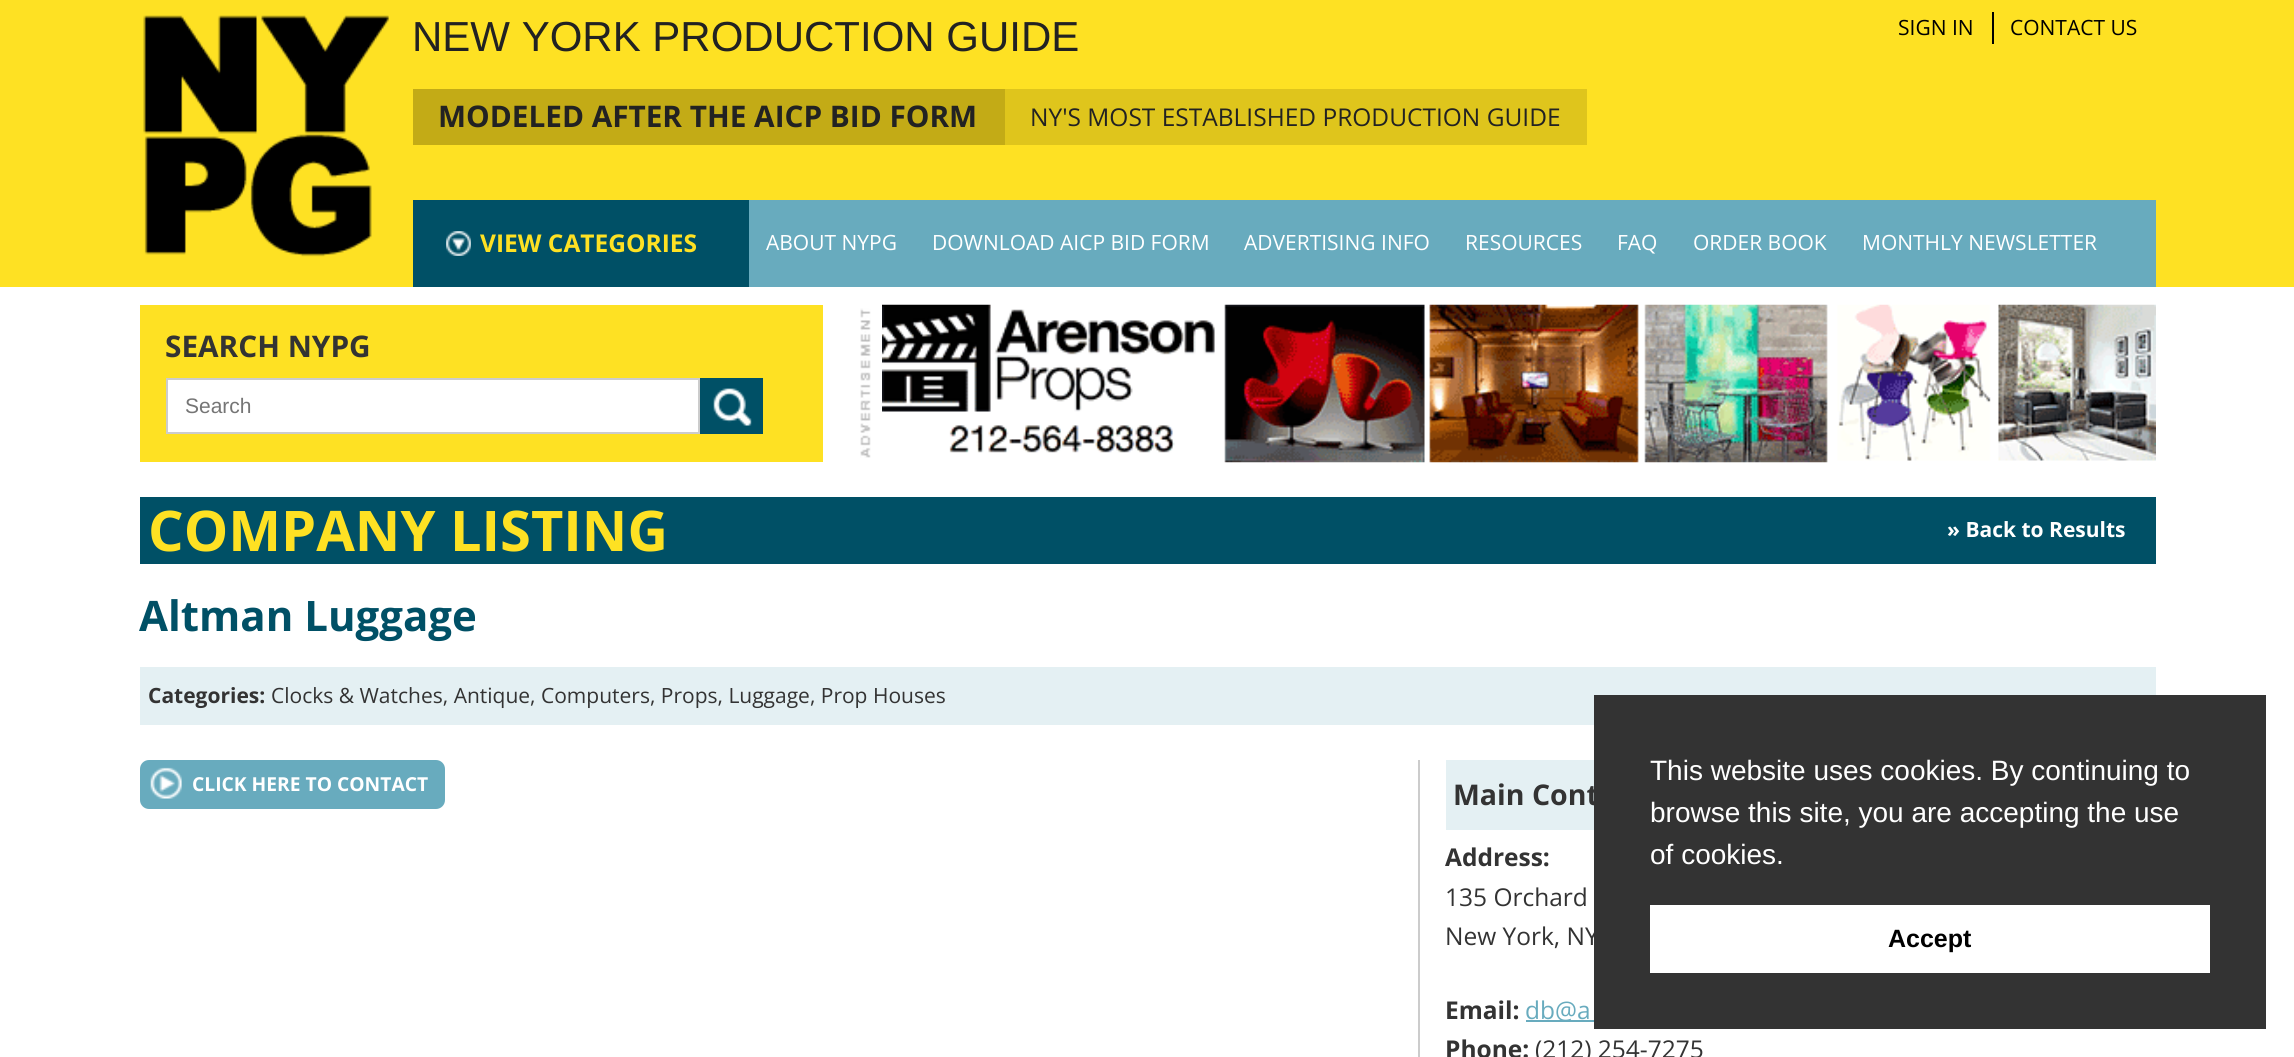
#include <cairo.h>
#include <math.h>
#include <stddef.h>

static cairo_t *c;
static void C(unsigned color){cairo_set_source_rgb(c, (color >> 16) / 255.0, (color >> 8 & 255) / 255.0, (color & 255) / 255.0);}
static void F(const char *family, double size, int italic, int bold){cairo_select_font_face(c, family, italic ? CAIRO_FONT_SLANT_ITALIC : CAIRO_FONT_SLANT_NORMAL,bold ? CAIRO_FONT_WEIGHT_BOLD : CAIRO_FONT_WEIGHT_NORMAL);cairo_set_font_size(c, size);}
static void T(double x, double y, const char *s){cairo_move_to(c, x, y);cairo_show_text(c, s);}
static void R(double x, double y, double w, double h){cairo_rectangle(c, x, y, w, h);cairo_fill(c);}
static void Q(double x, double y, double w, double h, double r){cairo_new_sub_path(c);cairo_arc(c, x + w - r, y + h - r, r, 0, M_PI / 2);cairo_arc(c, x + r, y + h - r, r, M_PI / 2, M_PI);cairo_arc(c, x + r, y + r, r, M_PI, 1.5 * M_PI);cairo_arc(c, x + w - r, y + r, r, 1.5 * M_PI, 2 * M_PI);cairo_close_path(c);}
static void I(const char *path, double x, double y, double w, double h){cairo_surface_t *image = cairo_image_surface_create_from_png(path);cairo_save(c);cairo_set_source_surface(c, image, x, y);cairo_rectangle(c, x, y, w, h);cairo_fill(c);cairo_restore(c);cairo_surface_destroy(image);}
int main(void) {
cairo_surface_t *surface = cairo_image_surface_create(CAIRO_FORMAT_RGB24, 2294, 1057);
c = cairo_create(surface);
cairo_font_options_t *options = cairo_font_options_create();
cairo_font_options_set_hint_metrics(options, CAIRO_HINT_METRICS_OFF);
cairo_font_options_set_hint_style(options, CAIRO_HINT_STYLE_NONE);
cairo_set_font_options(c, options);
cairo_set_miter_limit(c, 4);
C(0xffffff);
cairo_paint(c);
C(0xfee123);
R(0,0,2294,287);
I("1.png",143,15,246,242);
F("Open Sans",21,0,0);
C(0x000000);
T(1898,35,"SIGN IN");
R(1992,12,2,32);
T(2010,35,"CONTACT US");
C(0xc3ab16);
R(413,89,592,56);
F("Open Sans",29.75,0,1);
C(0x222222);
T(438,127,"MODELED AFTER THE AICP BID FORM");
C(0xdfc51c);
R(1005,89,582,56);
F("Open Sans",24.5,0,0);
C(0x222222);
T(1030,126,"NY'S MOST ESTABLISHED PRODUCTION GUIDE");
F("Liberation Sans",42,0,0);
T(412,51,"NEW YORK PRODUCTION GUIDE");
C(0x68abbe);
R(749,200,1407,87);
C(0x005066);
R(413,200,336,87);
I("2.png",446,231,25,25);
F("Open Sans",24.5,0,1);
C(0xfee123);
T(480,252,"VIEW CATEGORIES");
F("Open Sans",21,0,0);
C(0xffffff);
T(766,250,"ABOUT NYPG");
T(932,250,"DOWNLOAD AICP BID FORM");
T(1244,250,"ADVERTISING INFO");
T(1465,250,"RESOURCES");
T(1617,250,"FAQ");
T(1693,250,"ORDER BOOK");
T(1862,250,"MONTHLY NEWSLETTER");
C(0xfee123);
R(140,305,683,157);
F("Open Sans",29.75,0,1);
C(0x333333);
T(165,357,"SEARCH NYPG");
C(0xffffff);
cairo_rectangle(c,167,379,532,54);
cairo_fill_preserve(c);
C(0xcccccc);
cairo_stroke(c);
F("Liberation Sans",21,0,0);
C(0x757575);
T(185,413,"Search");
C(0x005066);
R(700,378,63,56);
I("3.png",713,388,39,38);
I("4.png",860,308,11,150);
I("5.png",882,304,1274,159);
R(140,497,2016,67);
F("Open Sans",56,0,1);
C(0xfee123);
T(148,551,"COMPANY LISTING");
F("Open Sans",21,0,1);
C(0xffffff);
T(1947,537,"» Back to Results");
F("Open Sans",42,0,1);
C(0x005066);
T(139,631,"Altman Luggage");
C(0xe4f0f3);
R(140,667,2016,58);
F("Open Sans",21,0,1);
C(0x333333);
T(148,703,"Categories:");
F("Open Sans",21,0,0);
T(271,703,"Clocks & Watches, Antique, Computers, Props, Luggage, Prop Houses");
C(0x68abbe);
Q(140,760,305,49,9);
cairo_fill(c);
I("6.png",150,767,32,32);
F("Open Sans",19.25,0,1);
C(0xffffff);
T(192,791,"CLICK HERE TO CONTACT");
C(0xcccccc);
R(1418,760,2,297);
C(0xe4f0f3);
R(1446,760,148,70);
F("Open Sans",28.5,0,1);
C(0x333333);
T(1453,805,"Main Cont");
F("Open Sans",24.5,0,1);
T(1445,866,"Address:");
F("Open Sans",24.5,0,0);
T(1445,906,"135 Orchard");
T(1445,945,"New York, NY");
F("Open Sans",24.5,0,1);
T(1445,1019,"Email:");
C(0x68abbe);
R(1526,1020,68,2);
F("Open Sans",24.5,0,0);
T(1525,1019,"db@a");
F("Open Sans",24.5,0,1);
C(0x333333);
T(1445,1058,"Phone:");
F("Open Sans",24.5,0,0);
T(1535,1058,"(212) 254-7275");
R(1594,695,672,334);
F("Liberation Sans",28,0,0);
C(0xffffff);
T(1650,780,"This website uses cookies. By continuing to");
T(1650,822,"browse this site, you are accepting the use");
T(1650,864,"of cookies.");
R(1650,905,560,68);
F("Liberation Sans",25,0,1);
C(0x000000);
T(1888,947,"Accept");
cairo_surface_write_to_png(surface, "o.png");
cairo_font_options_destroy(options);
cairo_destroy(c);
cairo_surface_destroy(surface);
return 0;
}
